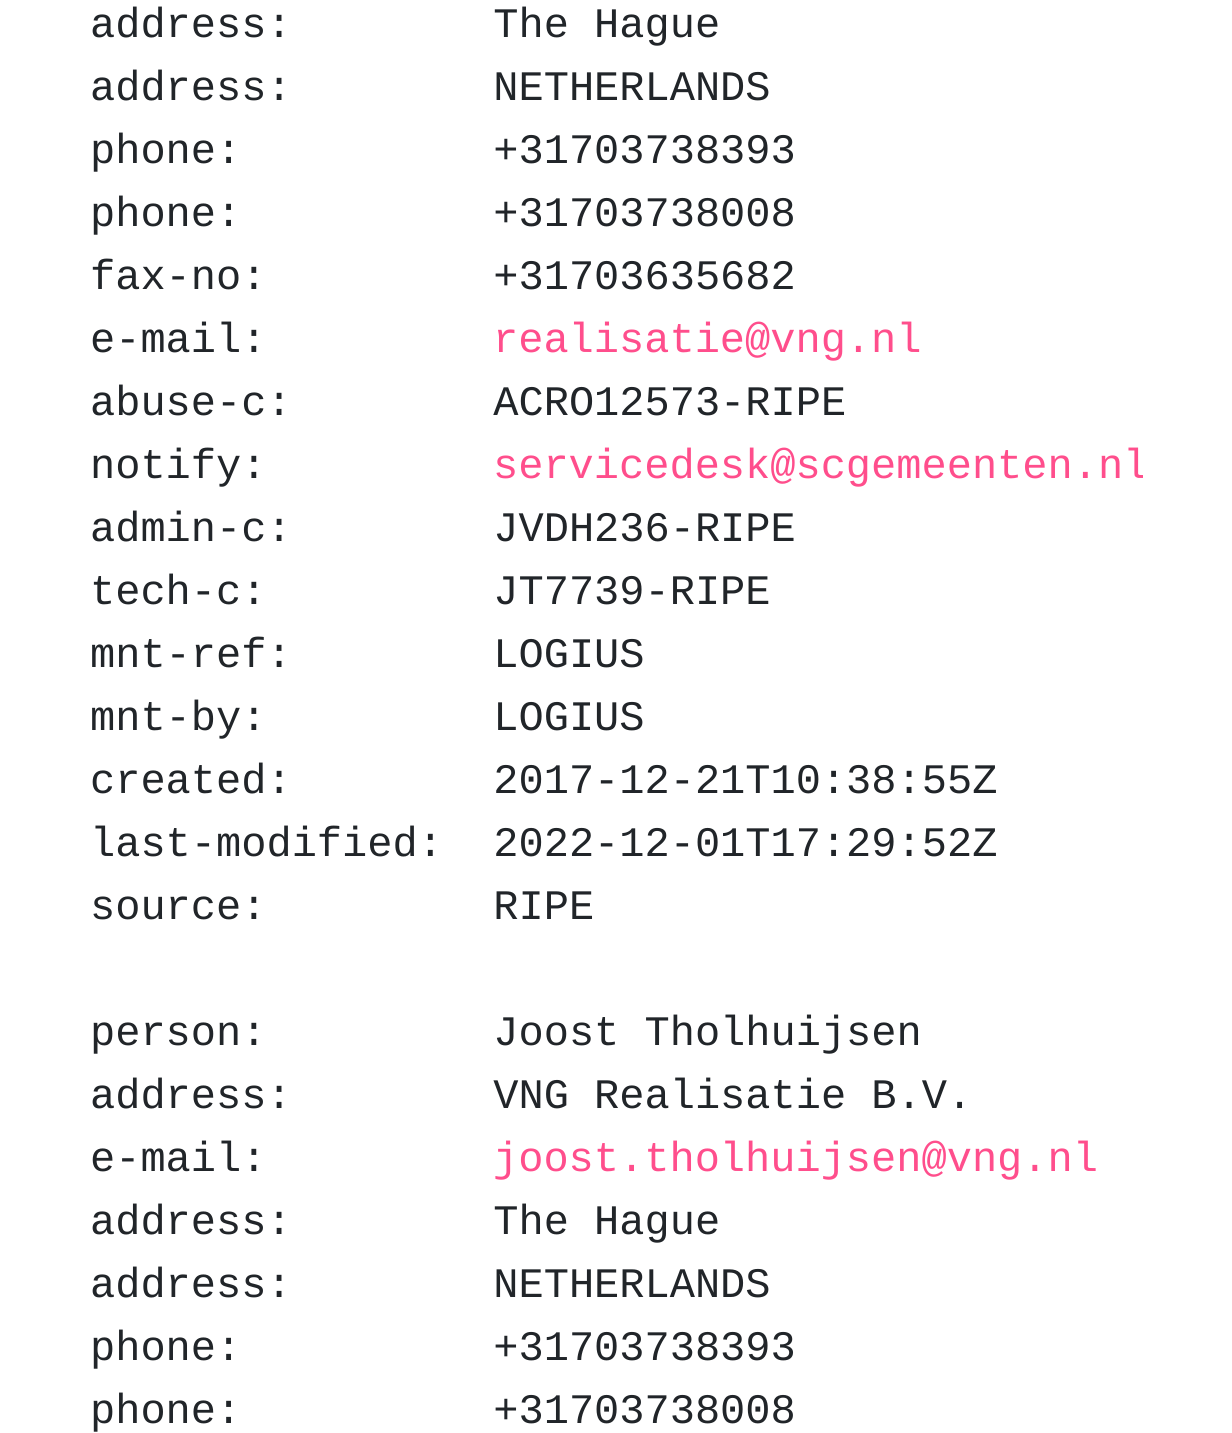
#include <cairo.h>
#include <math.h>
#include <stddef.h>

static cairo_t *c;
static void C(unsigned color){cairo_set_source_rgb(c, (color >> 16) / 255.0, (color >> 8 & 255) / 255.0, (color & 255) / 255.0);}
static void F(const char *family, double size, int italic, int bold){cairo_select_font_face(c, family, italic ? CAIRO_FONT_SLANT_ITALIC : CAIRO_FONT_SLANT_NORMAL,bold ? CAIRO_FONT_WEIGHT_BOLD : CAIRO_FONT_WEIGHT_NORMAL);cairo_set_font_size(c, size);}
static void T(double x, double y, const char *s){cairo_move_to(c, x, y);cairo_show_text(c, s);}
int main(void) {
cairo_surface_t *surface = cairo_image_surface_create(CAIRO_FORMAT_RGB24, 1232, 1433);
c = cairo_create(surface);
cairo_font_options_t *options = cairo_font_options_create();
cairo_font_options_set_hint_metrics(options, CAIRO_HINT_METRICS_OFF);
cairo_font_options_set_hint_style(options, CAIRO_HINT_STYLE_NONE);
cairo_set_font_options(c, options);
cairo_set_miter_limit(c, 4);
C(0xffffff);
cairo_paint(c);
F("Liberation Mono",42,0,0);
C(0x212529);
T(90,37,"address:        The Hague");
T(90,100,"address:        NETHERLANDS");
T(90,163,"phone:          +31703738393");
T(90,226,"phone:          +31703738008");
T(90,289,"fax-no:         +31703635682");
T(90,352,"e-mail:");
C(0xff4e8c);
T(493,352,"realisatie@vng.nl");
C(0x212529);
T(90,415,"abuse-c:        ACRO12573-RIPE");
T(90,478,"notify:");
cairo_save(c);
cairo_rectangle(c,90,0,1053,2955);
cairo_clip(c);
C(0xff4e8c);
T(493,478,"servicedesk@scgemeenten.nl");
cairo_restore(c);
T(90,541,"admin-c:        JVDH236-RIPE");
T(90,604,"tech-c:         JT7739-RIPE");
T(90,667,"mnt-ref:        LOGIUS");
T(90,730,"mnt-by:         LOGIUS");
T(90,793,"created:        2017-12-21T10:38:55Z");
T(90,856,"last-modified:  2022-12-01T17:29:52Z");
T(90,919,"source:         RIPE");
T(90,1045,"person:         Joost Tholhuijsen");
T(90,1108,"address:        VNG Realisatie B.V.");
T(90,1171,"e-mail:");
C(0xff4e8c);
T(493,1171,"joost.tholhuijsen@vng.nl");
C(0x212529);
T(90,1234,"address:        The Hague");
T(90,1297,"address:        NETHERLANDS");
T(90,1360,"phone:          +31703738393");
T(90,1423,"phone:          +31703738008");
cairo_surface_write_to_png(surface, "o.png");
cairo_font_options_destroy(options);
cairo_destroy(c);
cairo_surface_destroy(surface);
return 0;
}
